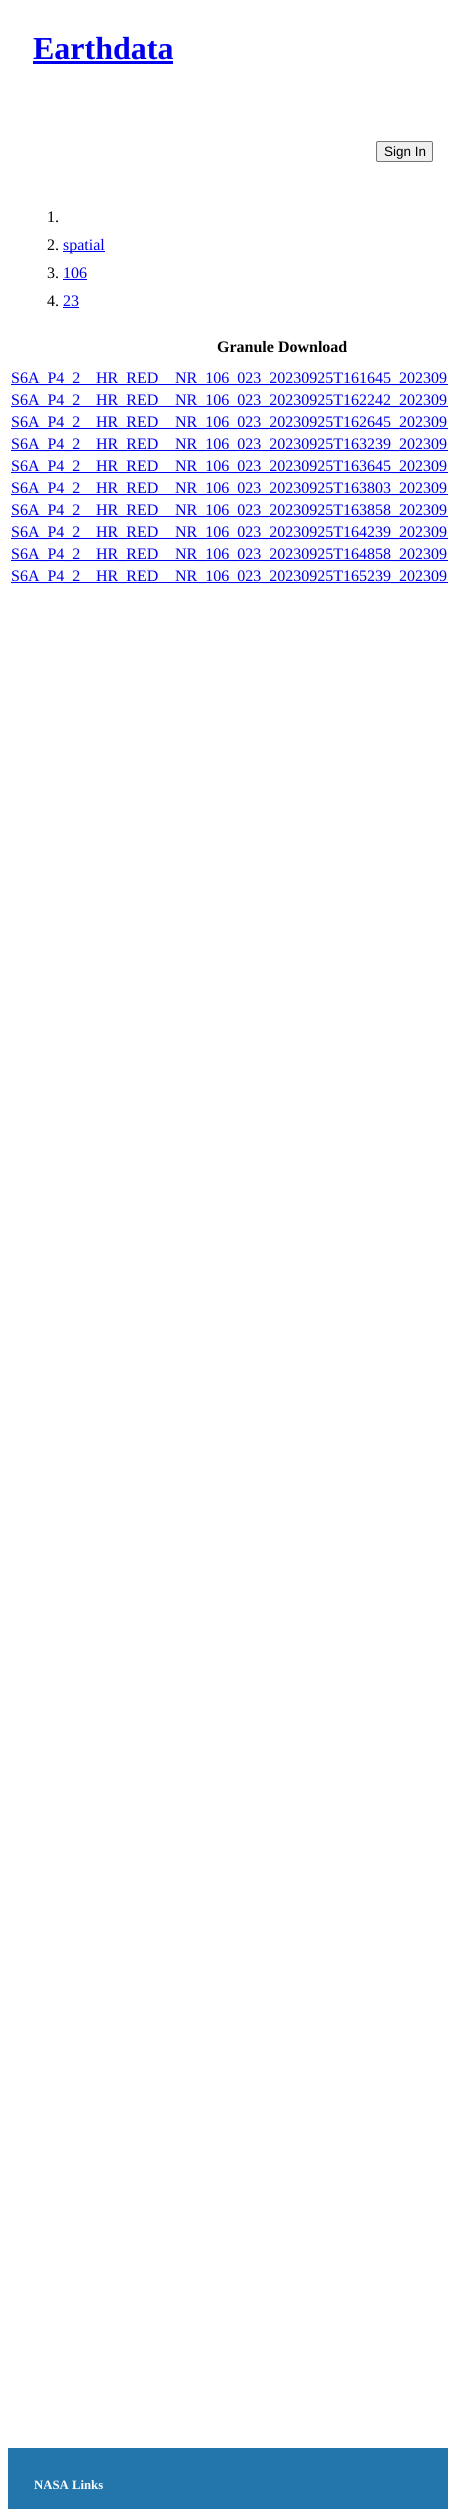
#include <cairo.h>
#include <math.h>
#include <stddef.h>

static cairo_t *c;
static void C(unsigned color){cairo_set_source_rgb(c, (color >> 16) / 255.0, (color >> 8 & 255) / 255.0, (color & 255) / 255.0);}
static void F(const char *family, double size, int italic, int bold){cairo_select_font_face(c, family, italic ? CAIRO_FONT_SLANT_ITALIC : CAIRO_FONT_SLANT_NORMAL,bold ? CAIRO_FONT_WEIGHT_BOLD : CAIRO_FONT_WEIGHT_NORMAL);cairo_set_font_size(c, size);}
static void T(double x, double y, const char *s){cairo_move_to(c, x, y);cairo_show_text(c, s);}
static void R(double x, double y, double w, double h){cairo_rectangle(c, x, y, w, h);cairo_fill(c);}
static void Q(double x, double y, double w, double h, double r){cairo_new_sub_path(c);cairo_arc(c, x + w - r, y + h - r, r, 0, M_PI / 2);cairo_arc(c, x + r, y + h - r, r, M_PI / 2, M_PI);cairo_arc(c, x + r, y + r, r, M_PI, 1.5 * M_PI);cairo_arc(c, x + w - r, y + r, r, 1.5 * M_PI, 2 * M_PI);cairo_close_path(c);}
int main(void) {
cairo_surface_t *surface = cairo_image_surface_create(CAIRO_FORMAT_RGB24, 456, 2509);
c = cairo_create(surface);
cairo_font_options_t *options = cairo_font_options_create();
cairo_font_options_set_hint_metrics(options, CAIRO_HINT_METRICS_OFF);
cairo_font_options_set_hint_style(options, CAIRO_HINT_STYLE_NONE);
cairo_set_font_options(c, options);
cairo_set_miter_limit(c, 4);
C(0xffffff);
cairo_paint(c);
F("Liberation Serif",32,0,1);
C(0x0000ee);
T(33,59,"Earthdata");
R(33,61,140,3);
C(0xefefef);
Q(376.5,141.5,56,20,1.5);
cairo_fill_preserve(c);
C(0x767676);
cairo_set_line_width(c,1);
cairo_stroke(c);
F("Liberation Sans",13.5,0,0);
C(0x000000);
T(384,156,"Sign In");
F("Liberation Serif",16,0,0);
T(47,222,"1.");
T(47,250,"2.");
C(0x0000ee);
R(63,251,42,1);
T(63,250,"spatial");
C(0x000000);
T(47,278,"3.");
C(0x0000ee);
T(63,278,"106");
R(63,279,24,1);
C(0x000000);
T(47,306,"4.");
C(0x0000ee);
T(63,306,"23");
R(63,307,16,1);
F("Liberation Serif",16,0,1);
C(0x000000);
T(217,352,"Granule Download");
C(0x0000ee);
R(11,384,437,1);
F("Liberation Serif",16,0,0);
T(11,383,"S6A_P4_2");
T(96,383,"HR_RED");
T(175,383,"NR_106_023_20230925T161645_202309");
R(11,406,437,1);
T(11,405,"S6A_P4_2");
T(96,405,"HR_RED");
T(175,405,"NR_106_023_20230925T162242_202309");
R(11,428,437,1);
T(11,427,"S6A_P4_2");
T(96,427,"HR_RED");
T(175,427,"NR_106_023_20230925T162645_202309");
R(11,450,437,1);
T(11,449,"S6A_P4_2");
T(96,449,"HR_RED");
T(175,449,"NR_106_023_20230925T163239_202309");
R(11,472,437,1);
T(11,471,"S6A_P4_2");
T(96,471,"HR_RED");
T(175,471,"NR_106_023_20230925T163645_202309");
R(11,494,437,1);
T(11,493,"S6A_P4_2");
T(96,493,"HR_RED");
T(175,493,"NR_106_023_20230925T163803_202309");
R(11,516,437,1);
T(11,515,"S6A_P4_2");
T(96,515,"HR_RED");
T(175,515,"NR_106_023_20230925T163858_202309");
R(11,538,437,1);
T(11,537,"S6A_P4_2");
T(96,537,"HR_RED");
T(175,537,"NR_106_023_20230925T164239_202309");
R(11,560,437,1);
T(11,559,"S6A_P4_2");
T(96,559,"HR_RED");
T(175,559,"NR_106_023_20230925T164858_202309");
R(11,582,437,1);
T(11,581,"S6A_P4_2");
T(96,581,"HR_RED");
T(175,581,"NR_106_023_20230925T165239_202309");
C(0x2276ac);
R(8,2448,440,61);
F("Liberation Serif",12.75,0,1);
C(0xffffff);
T(34,2489,"NASA Links");
cairo_surface_write_to_png(surface, "o.png");
cairo_font_options_destroy(options);
cairo_destroy(c);
cairo_surface_destroy(surface);
return 0;
}
